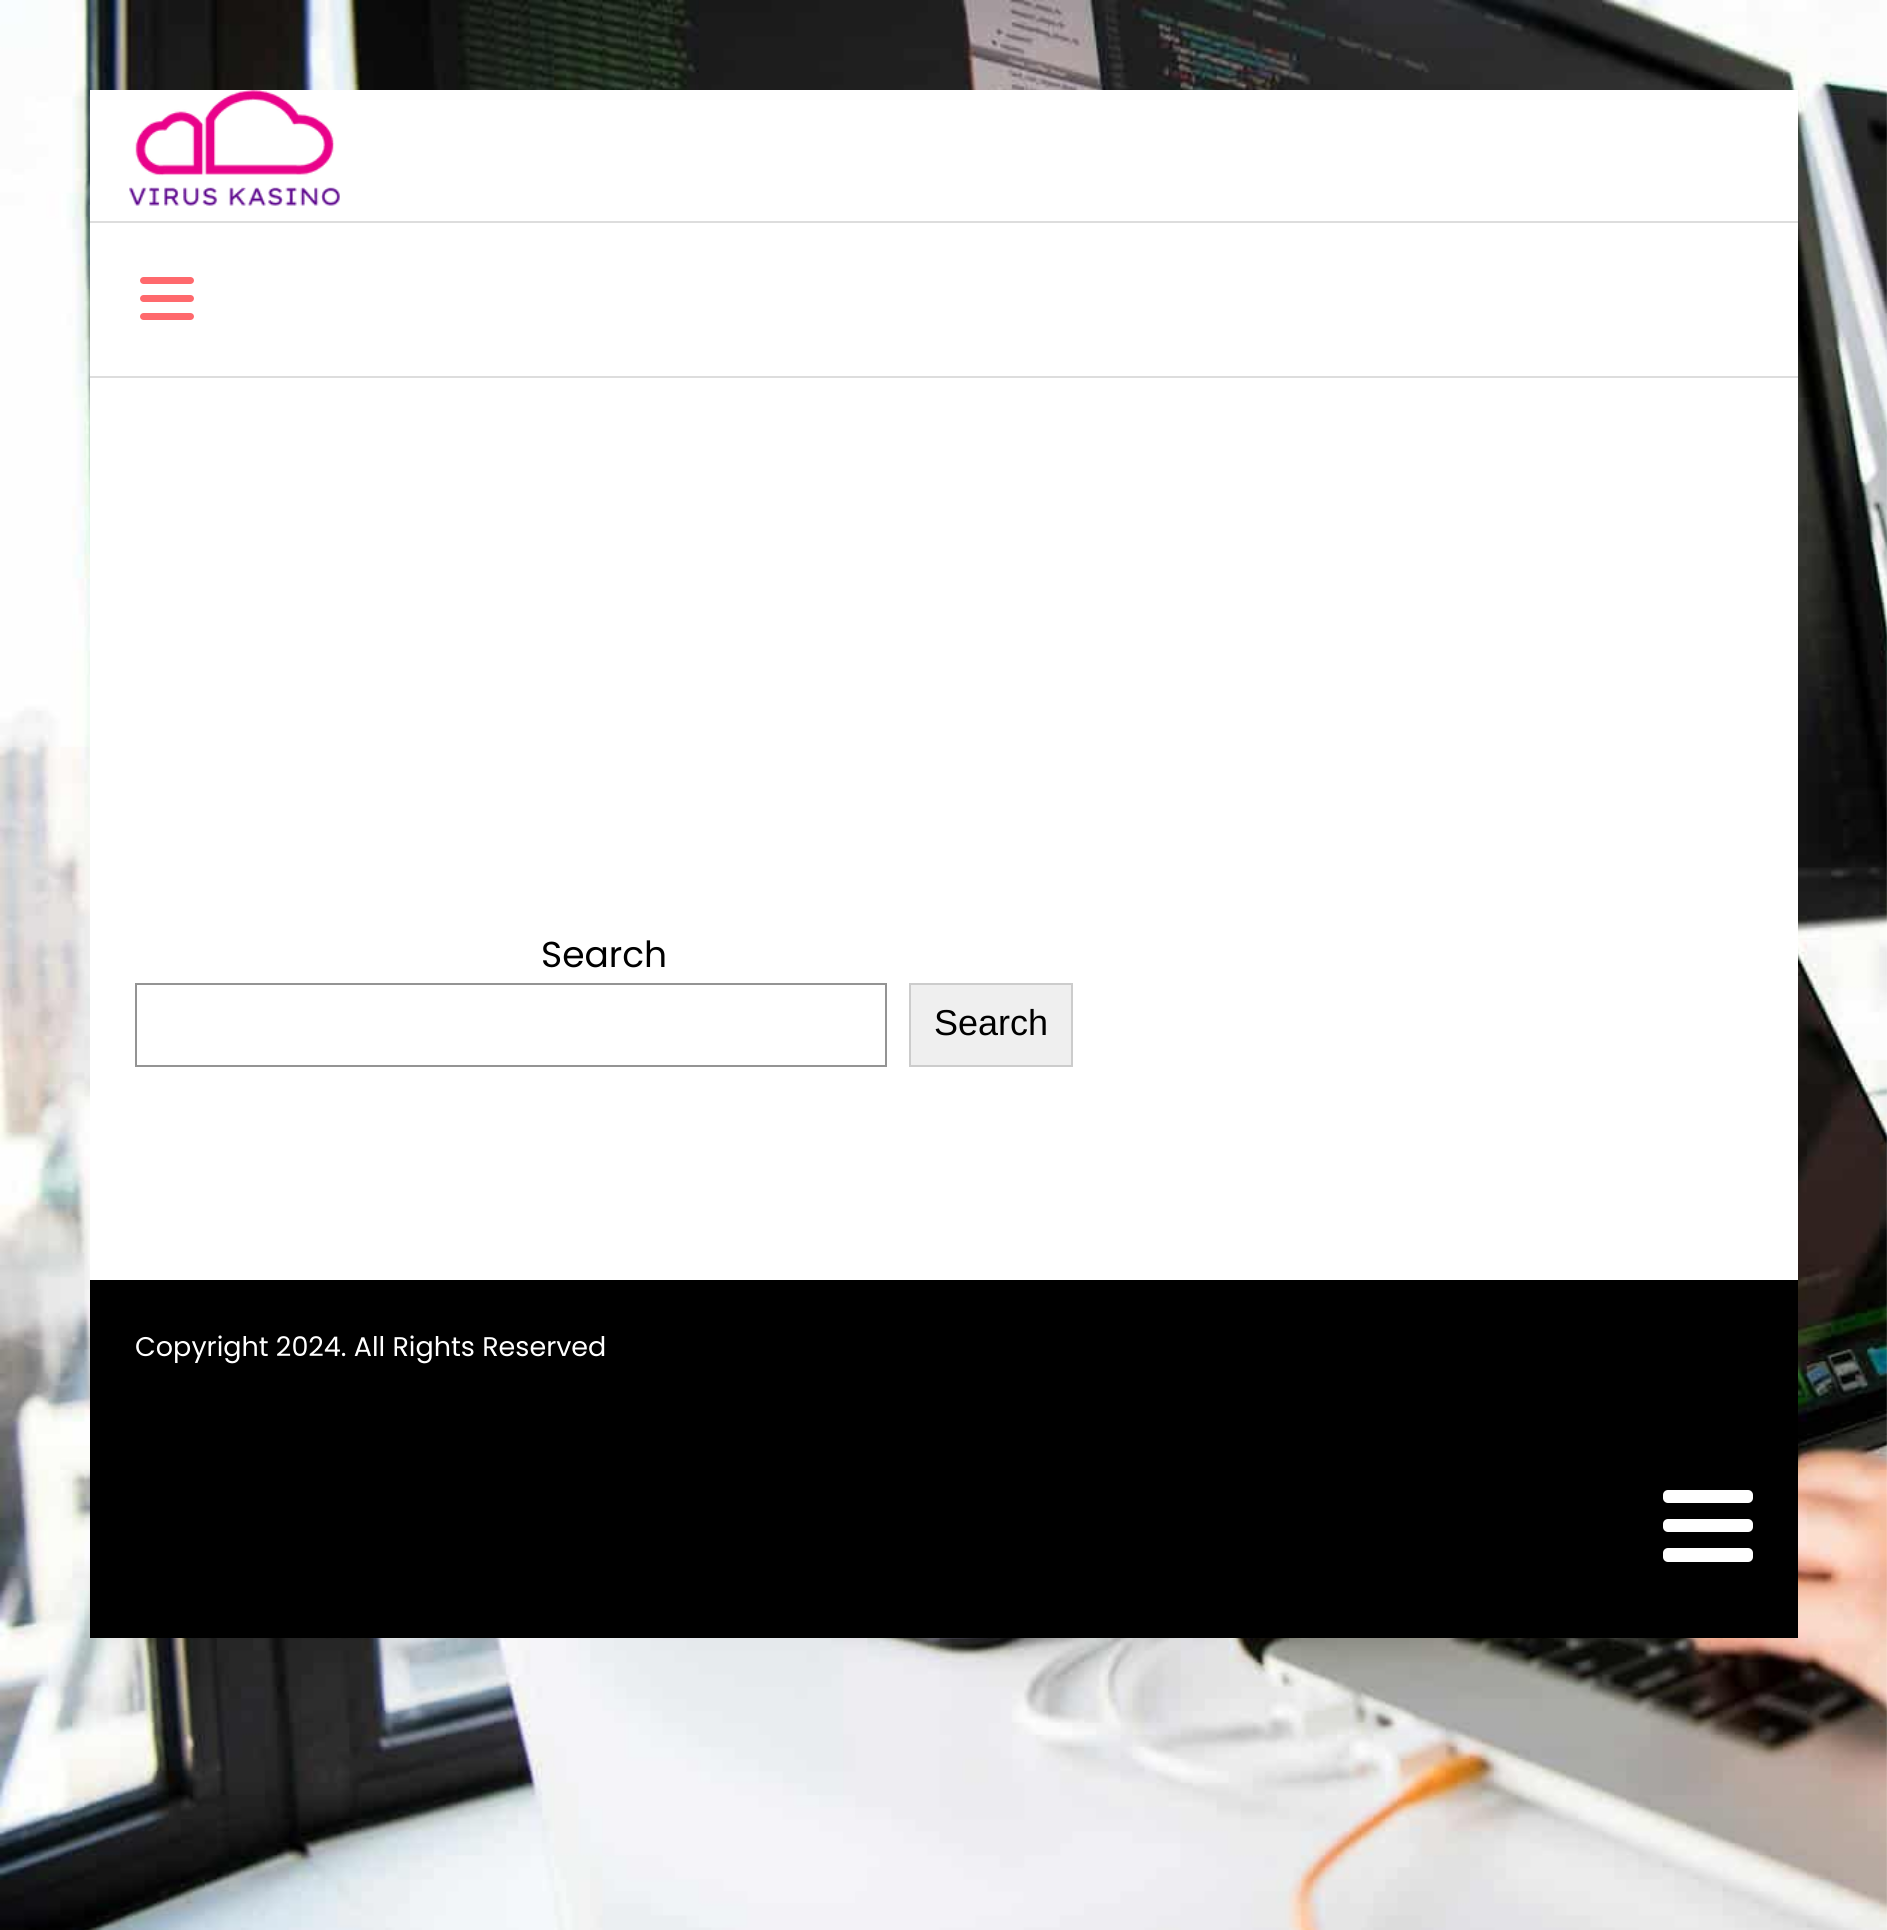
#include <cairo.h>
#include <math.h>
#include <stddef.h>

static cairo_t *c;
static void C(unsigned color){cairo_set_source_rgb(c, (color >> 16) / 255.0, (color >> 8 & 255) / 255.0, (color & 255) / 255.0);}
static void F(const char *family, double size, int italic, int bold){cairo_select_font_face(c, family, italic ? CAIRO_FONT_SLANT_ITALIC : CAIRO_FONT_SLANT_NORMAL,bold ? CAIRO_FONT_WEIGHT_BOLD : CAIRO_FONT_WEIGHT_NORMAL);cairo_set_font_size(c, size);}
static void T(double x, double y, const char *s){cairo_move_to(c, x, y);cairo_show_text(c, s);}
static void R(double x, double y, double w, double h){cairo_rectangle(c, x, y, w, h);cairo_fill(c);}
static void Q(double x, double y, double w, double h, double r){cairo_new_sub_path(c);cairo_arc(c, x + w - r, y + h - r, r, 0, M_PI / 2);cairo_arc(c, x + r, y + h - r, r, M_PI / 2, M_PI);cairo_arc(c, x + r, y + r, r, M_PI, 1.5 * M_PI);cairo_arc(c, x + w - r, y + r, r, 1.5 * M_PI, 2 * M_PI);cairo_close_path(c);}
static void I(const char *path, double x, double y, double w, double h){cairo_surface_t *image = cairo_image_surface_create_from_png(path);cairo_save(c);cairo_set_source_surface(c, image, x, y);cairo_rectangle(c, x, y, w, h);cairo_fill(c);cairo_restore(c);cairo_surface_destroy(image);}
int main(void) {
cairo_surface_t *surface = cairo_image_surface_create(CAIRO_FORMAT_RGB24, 1887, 1930);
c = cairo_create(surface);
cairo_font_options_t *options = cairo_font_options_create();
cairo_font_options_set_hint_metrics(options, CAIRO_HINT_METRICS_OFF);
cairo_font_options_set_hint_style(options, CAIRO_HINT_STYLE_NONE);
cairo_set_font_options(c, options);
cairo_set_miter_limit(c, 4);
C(0xffffff);
cairo_paint(c);
I("1.png",0,0,1887,1930);
C(0xffffff);
R(90,90,1708,1190);
I("2.png",129,90,211,116);
C(0xdddddd);
R(90,221,1708,2);
R(90,376,1708,2);
C(0xff696d);
Q(140,277,54,7,3.5);
cairo_fill(c);
Q(140,295,54,7,3.5);
cairo_fill(c);
Q(140,313,54,7,3.5);
cairo_fill(c);
F("Poppins",36,0,0);
C(0x000000);
T(541,967,"Search");
cairo_rectangle(c,136,984,750,82);
C(0x949494);
cairo_stroke(c);
C(0xefefef);
cairo_rectangle(c,910,984,162,82);
cairo_fill_preserve(c);
C(0xcccccc);
cairo_stroke(c);
F("Liberation Sans",36,0,0);
C(0x000000);
T(934,1035,"Search");
R(90,1280,1708,358);
F("Poppins",27,0,0);
C(0xffffff);
T(135,1356,"Copyright 2024. All Rights Reserved");
Q(1663,1490,90,13,5);
cairo_fill(c);
Q(1663,1519,90,13,5);
cairo_fill(c);
Q(1663,1548,90,14,5);
cairo_fill(c);
cairo_surface_write_to_png(surface, "o.png");
cairo_font_options_destroy(options);
cairo_destroy(c);
cairo_surface_destroy(surface);
return 0;
}
